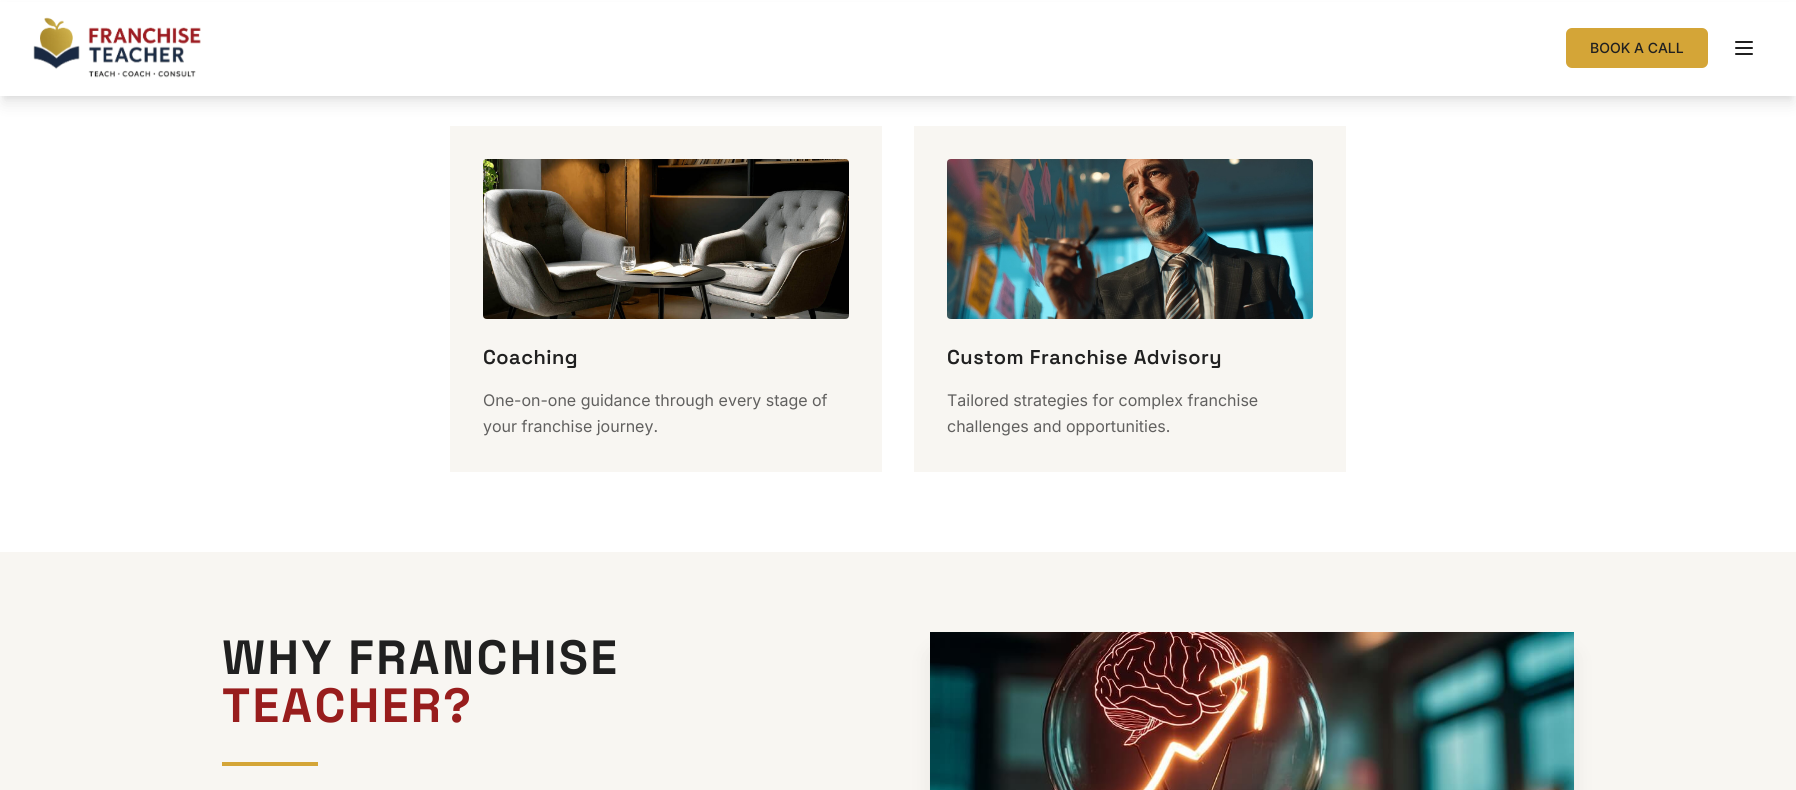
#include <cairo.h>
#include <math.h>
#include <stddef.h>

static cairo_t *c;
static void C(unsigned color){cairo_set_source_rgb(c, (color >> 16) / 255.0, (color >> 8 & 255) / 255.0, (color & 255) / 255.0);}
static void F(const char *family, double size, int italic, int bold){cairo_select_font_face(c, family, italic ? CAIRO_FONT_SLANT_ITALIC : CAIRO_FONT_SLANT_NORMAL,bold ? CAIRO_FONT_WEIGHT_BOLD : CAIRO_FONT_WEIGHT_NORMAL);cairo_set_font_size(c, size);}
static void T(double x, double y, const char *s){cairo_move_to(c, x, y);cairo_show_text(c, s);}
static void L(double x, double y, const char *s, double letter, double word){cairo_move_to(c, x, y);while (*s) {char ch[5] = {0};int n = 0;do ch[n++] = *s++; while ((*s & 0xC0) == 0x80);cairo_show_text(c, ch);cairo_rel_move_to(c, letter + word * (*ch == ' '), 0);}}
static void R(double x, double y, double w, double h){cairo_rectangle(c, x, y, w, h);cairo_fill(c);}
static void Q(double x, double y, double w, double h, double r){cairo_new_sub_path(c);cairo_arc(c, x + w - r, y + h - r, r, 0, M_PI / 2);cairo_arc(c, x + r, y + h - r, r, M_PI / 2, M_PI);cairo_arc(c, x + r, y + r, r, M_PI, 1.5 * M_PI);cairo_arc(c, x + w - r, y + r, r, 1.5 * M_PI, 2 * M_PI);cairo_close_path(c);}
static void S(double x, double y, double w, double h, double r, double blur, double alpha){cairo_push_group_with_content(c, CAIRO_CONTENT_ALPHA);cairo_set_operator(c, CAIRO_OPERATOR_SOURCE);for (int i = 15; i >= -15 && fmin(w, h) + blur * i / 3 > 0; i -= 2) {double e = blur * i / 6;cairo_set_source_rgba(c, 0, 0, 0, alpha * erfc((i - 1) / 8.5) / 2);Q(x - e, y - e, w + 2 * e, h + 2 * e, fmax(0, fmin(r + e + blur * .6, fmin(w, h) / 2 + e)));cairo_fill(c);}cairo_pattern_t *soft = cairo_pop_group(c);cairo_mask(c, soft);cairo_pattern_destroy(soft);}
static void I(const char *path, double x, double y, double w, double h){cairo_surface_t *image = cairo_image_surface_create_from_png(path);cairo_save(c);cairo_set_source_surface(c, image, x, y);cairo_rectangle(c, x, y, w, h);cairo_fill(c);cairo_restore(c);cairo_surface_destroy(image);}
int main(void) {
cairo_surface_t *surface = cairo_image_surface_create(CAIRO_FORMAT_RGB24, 1796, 790);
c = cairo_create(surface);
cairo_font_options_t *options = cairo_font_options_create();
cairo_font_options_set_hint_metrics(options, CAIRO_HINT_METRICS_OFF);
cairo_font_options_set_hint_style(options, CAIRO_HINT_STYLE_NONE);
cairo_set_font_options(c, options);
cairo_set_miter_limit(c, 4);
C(0xffffff);
cairo_paint(c);
C(0x000000);
S(4,8,1788,88,0,3,.1);
C(0xf8f6f2);
R(450,126,432,346);
R(914,126,432,346);
C(0x000000);
S(3,13,1790,90,0,7.5,.1);
C(0xffffff);
R(0,2,1796,94);
I("1.png",33,17,168,61);
C(0xd4a537);
Q(1566,28,142,40,6);
cairo_fill(c);
F("Inter Medium",14,0,0);
C(0x202020);
T(1590,53,"BOOK A CALL");
I("2.png",1735,41,18,14);
I("3.png",483,159,366,160);
F("Space Grotesk SemiBold",20,0,0);
L(483,364,"Coaching",.5,0);
F("Inter",16,0,0);
C(0x61605f);
T(483,406,"One-on-one guidance through every stage of");
T(483,432,"your franchise journey.");
I("4.png",947,159,366,160);
F("Space Grotesk SemiBold",20,0,0);
C(0x202020);
L(947,364,"Custom Franchise Advisory",.5,0);
F("Inter",16,0,0);
C(0x61605f);
T(947,406,"Tailored strategies for complex franchise");
T(947,432,"challenges and opportunities.");
C(0xf8f6f2);
R(0,552,1796,238);
F("Space Grotesk",48,0,1);
C(0x202020);
L(222,674,"WHY FRANCHISE",2.4,0);
C(0x981d1d);
L(222,722,"TEACHER?",2.4,0);
C(0xd4a537);
R(222,762,96,4);
C(0x000000);
S(935,657,634,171,0,12.5,.1);
I("5.png",930,632,644,158);
cairo_surface_write_to_png(surface, "o.png");
cairo_font_options_destroy(options);
cairo_destroy(c);
cairo_surface_destroy(surface);
return 0;
}
